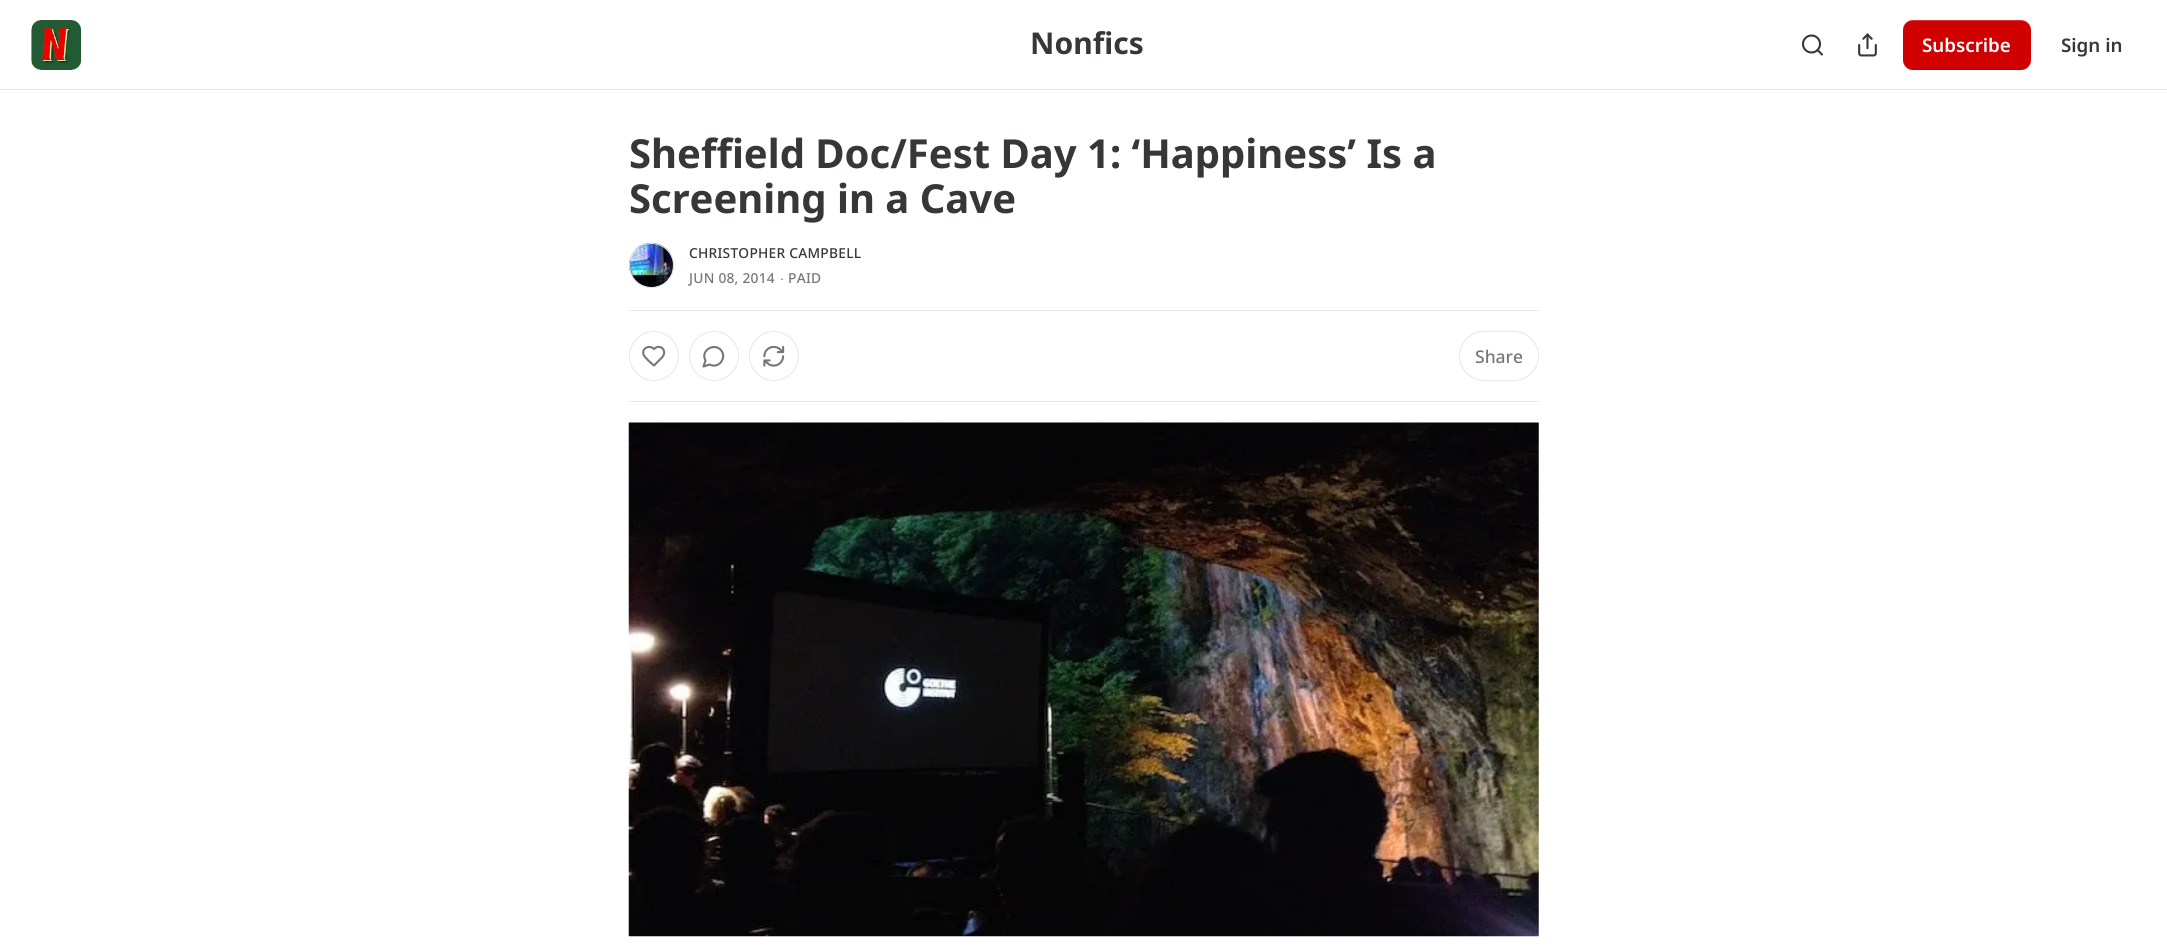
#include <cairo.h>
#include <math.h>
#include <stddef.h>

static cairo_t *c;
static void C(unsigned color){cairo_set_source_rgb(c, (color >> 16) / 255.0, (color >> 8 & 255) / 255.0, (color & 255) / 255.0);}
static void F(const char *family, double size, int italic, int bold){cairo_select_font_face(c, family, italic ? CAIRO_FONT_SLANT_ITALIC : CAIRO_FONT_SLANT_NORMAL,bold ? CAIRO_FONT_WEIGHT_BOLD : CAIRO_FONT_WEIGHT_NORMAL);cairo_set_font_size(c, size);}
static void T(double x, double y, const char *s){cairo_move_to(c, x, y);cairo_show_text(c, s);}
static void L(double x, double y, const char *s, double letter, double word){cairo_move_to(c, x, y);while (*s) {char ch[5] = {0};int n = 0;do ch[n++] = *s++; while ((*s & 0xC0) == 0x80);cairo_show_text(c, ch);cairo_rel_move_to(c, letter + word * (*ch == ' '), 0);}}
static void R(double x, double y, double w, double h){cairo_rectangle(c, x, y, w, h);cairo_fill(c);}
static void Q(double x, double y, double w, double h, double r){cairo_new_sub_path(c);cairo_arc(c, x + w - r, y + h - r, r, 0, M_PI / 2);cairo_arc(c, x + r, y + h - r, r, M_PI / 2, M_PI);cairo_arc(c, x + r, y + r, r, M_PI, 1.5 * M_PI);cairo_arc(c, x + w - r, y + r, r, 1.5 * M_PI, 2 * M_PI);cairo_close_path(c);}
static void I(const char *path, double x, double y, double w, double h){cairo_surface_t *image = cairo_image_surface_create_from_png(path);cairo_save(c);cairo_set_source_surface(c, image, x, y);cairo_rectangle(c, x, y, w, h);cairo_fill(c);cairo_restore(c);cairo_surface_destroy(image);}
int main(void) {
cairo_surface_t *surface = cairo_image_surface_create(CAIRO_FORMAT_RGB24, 2167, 949);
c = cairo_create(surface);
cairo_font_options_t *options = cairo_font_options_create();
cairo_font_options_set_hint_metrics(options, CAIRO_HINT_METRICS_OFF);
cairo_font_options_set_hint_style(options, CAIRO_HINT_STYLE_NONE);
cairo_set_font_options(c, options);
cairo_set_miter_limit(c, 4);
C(0xffffff);
cairo_paint(c);
C(0xe6e6e6);
R(0,89,2167,1);
I("1.png",31,20,51,50);
F("Noto Sans",30,0,1);
C(0x363737);
T(1030,54,"Nonfics");
cairo_new_path(c);
cairo_arc(c,1811.5,44,8.5,0,2 * M_PI);
cairo_set_line_width(c,2.1);
cairo_stroke(c);
cairo_new_path(c);
cairo_move_to(c,1822,54.5);
cairo_line_to(c,1817.5,50);
cairo_set_line_cap(c,CAIRO_LINE_CAP_ROUND);
cairo_set_line_join(c,CAIRO_LINE_JOIN_ROUND);
cairo_stroke(c);
I("2.png",1858,33,19,24);
C(0xd10000);
Q(1903,20,128,50,10);
cairo_fill(c);
cairo_set_source_rgba(c,0,0,0,0.1);
cairo_new_path(c);
cairo_move_to(c,1904,65);
cairo_curve_to(c,1906,68,1909,70,1913,70);
cairo_line_to(c,2021,70);
cairo_curve_to(c,2027,70,2031,66,2031,60);
cairo_line_to(c,2031,59);
cairo_curve_to(c,2031,64,2027,69,2021,69);
cairo_line_to(c,1912,69);
cairo_curve_to(c,1909,69,1906,67,1904,65);
cairo_close_path(c);
cairo_fill(c);
cairo_set_source_rgba(c,1,1,1,0.2);
cairo_new_path(c);
cairo_move_to(c,1912,21);
cairo_line_to(c,2021,21);
cairo_curve_to(c,2027,21,2031,26,2031,31);
cairo_line_to(c,2031,30);
cairo_curve_to(c,2031,24,2027,20,2021,20);
cairo_line_to(c,1913,20);
cairo_curve_to(c,1909,20,1906,22,1904,25);
cairo_curve_to(c,1906,23,1909,21,1912,21);
cairo_close_path(c);
cairo_fill(c);
F("Noto Sans SemiBold",18.75,0,0);
C(0xffffff);
T(1922,52,"Subscribe");
C(0x363737);
T(2061,52,"Sign in");
F("Noto Sans",40,0,1);
T(629,168,"Sheffield Doc/Fest Day 1: ‘Happiness’ Is a");
T(629,213,"Screening in a Cave");
cairo_new_path(c);
cairo_arc(c,651.5,265.5,22,0,2 * M_PI);
C(0xe6e6e6);
cairo_set_line_width(c,1);
cairo_set_line_cap(c,CAIRO_LINE_CAP_BUTT);
cairo_set_line_join(c,CAIRO_LINE_JOIN_MITER);
cairo_stroke(c);
I("3.png",629,242,45,46);
cairo_arc(c,651.5,265.5,22,0,2 * M_PI);
cairo_stroke(c);
F("Noto Sans Medium",13.75,0,0);
C(0x363737);
L(689,258,"CHRISTOPHER CAMPBELL",.25,0);
C(0x777777);
L(689,283,"JUN 08, 2014",.25,0);
F("Liberation Sans",13.75,0,0);
L(780,283,"∙",.25,0);
F("Noto Sans Medium",13.75,0,0);
L(788,283,"PAID",.25,0);
C(0xe6e6e6);
R(629,310,910,1);
R(629,401,910,1);
cairo_new_path(c);
cairo_arc(c,654,356,24.5,0,2 * M_PI);
cairo_stroke(c);
cairo_new_path(c);
cairo_move_to(c,661,358.5);
cairo_curve_to(c,669,351,660,343,654,349);
cairo_curve_to(c,649.5,344.5,641.5,348,643.5,354.5);
cairo_curve_to(c,644.5,357.5,651,363,654,365.5);
cairo_close_path(c);
C(0x777777);
cairo_set_line_width(c,2.1);
cairo_set_line_cap(c,CAIRO_LINE_CAP_ROUND);
cairo_set_line_join(c,CAIRO_LINE_JOIN_ROUND);
cairo_stroke(c);
cairo_arc(c,714,356,24.5,0,2 * M_PI);
C(0xe6e6e6);
cairo_set_line_width(c,1);
cairo_set_line_cap(c,CAIRO_LINE_CAP_BUTT);
cairo_set_line_join(c,CAIRO_LINE_JOIN_MITER);
cairo_stroke(c);
cairo_new_path(c);
cairo_move_to(c,709.5,364.5);
cairo_curve_to(c,714,367,720,365,722,360.5);
cairo_curve_to(c,723.5,358,723.5,355,722.5,352.5);
cairo_curve_to(c,717,341,699.5,349.5,705.5,360.5);
cairo_line_to(c,703.5,366.5);
cairo_close_path(c);
C(0x777777);
cairo_set_line_width(c,2.1);
cairo_set_line_cap(c,CAIRO_LINE_CAP_ROUND);
cairo_set_line_join(c,CAIRO_LINE_JOIN_ROUND);
cairo_stroke(c);
cairo_arc(c,774,356,24.5,0,2 * M_PI);
C(0xe6e6e6);
cairo_set_line_width(c,1);
cairo_set_line_cap(c,CAIRO_LINE_CAP_BUTT);
cairo_set_line_join(c,CAIRO_LINE_JOIN_MITER);
cairo_stroke(c);
I("4.png",763,345,22,22);
Q(1459.5,331.5,79,49,24.5);
cairo_stroke(c);
F("Noto Sans Medium",17.5,0,0);
C(0x777777);
T(1475,363,"Share");
I("5.png",628,422,911,515);
cairo_surface_write_to_png(surface, "o.png");
cairo_font_options_destroy(options);
cairo_destroy(c);
cairo_surface_destroy(surface);
return 0;
}
